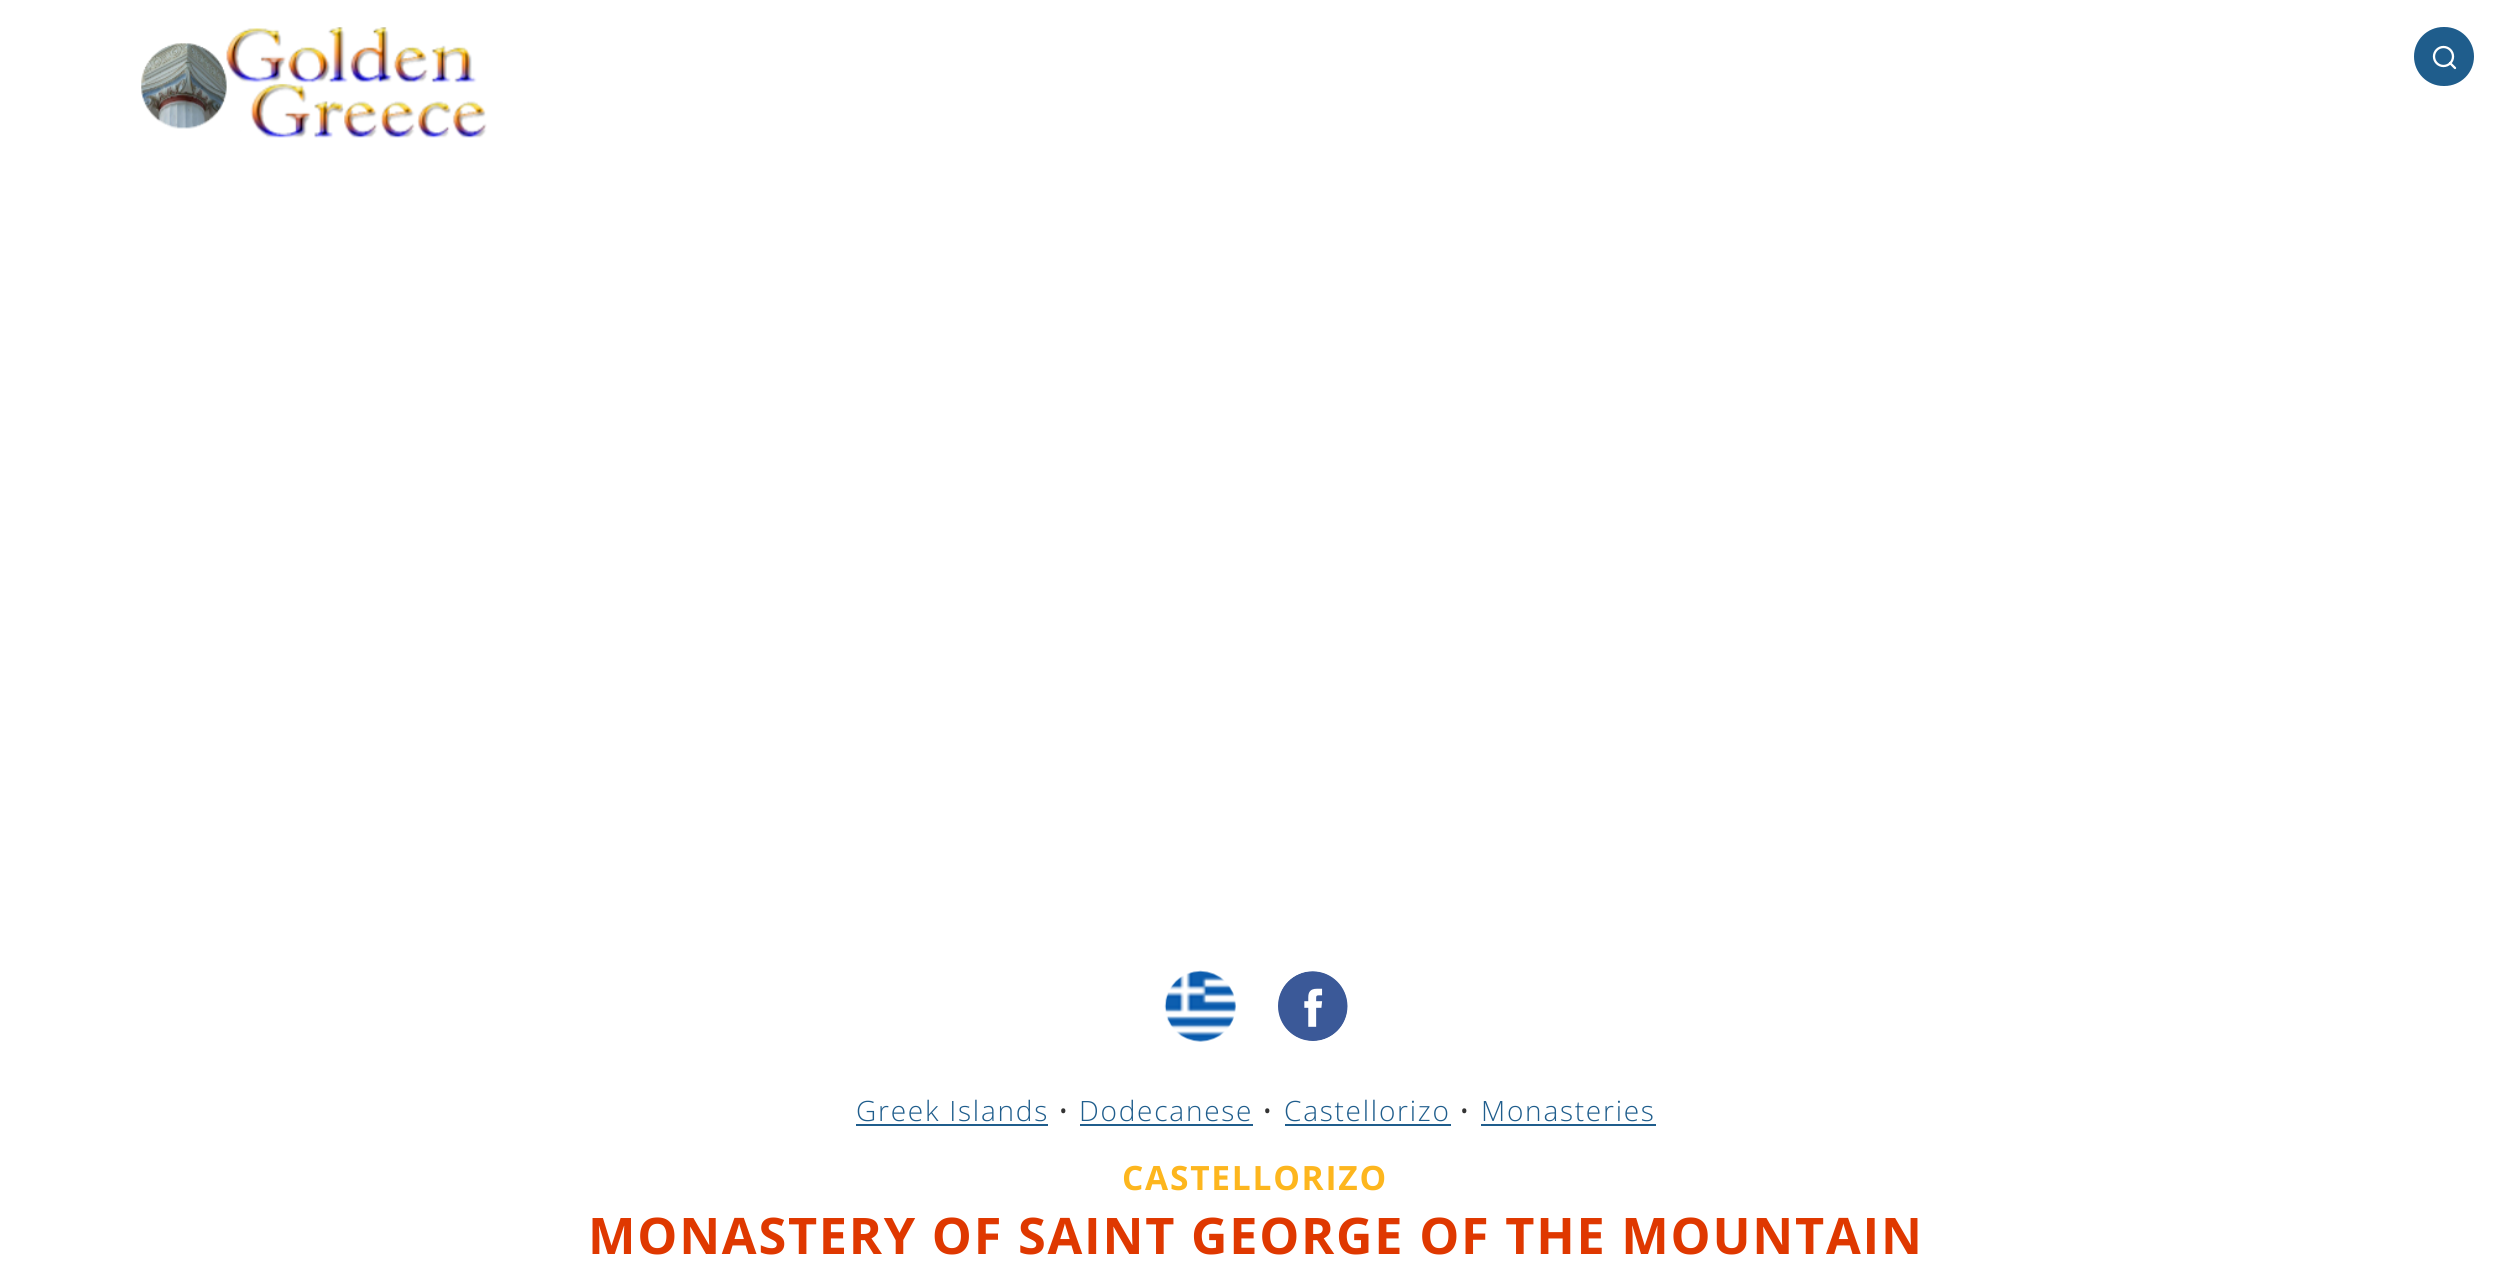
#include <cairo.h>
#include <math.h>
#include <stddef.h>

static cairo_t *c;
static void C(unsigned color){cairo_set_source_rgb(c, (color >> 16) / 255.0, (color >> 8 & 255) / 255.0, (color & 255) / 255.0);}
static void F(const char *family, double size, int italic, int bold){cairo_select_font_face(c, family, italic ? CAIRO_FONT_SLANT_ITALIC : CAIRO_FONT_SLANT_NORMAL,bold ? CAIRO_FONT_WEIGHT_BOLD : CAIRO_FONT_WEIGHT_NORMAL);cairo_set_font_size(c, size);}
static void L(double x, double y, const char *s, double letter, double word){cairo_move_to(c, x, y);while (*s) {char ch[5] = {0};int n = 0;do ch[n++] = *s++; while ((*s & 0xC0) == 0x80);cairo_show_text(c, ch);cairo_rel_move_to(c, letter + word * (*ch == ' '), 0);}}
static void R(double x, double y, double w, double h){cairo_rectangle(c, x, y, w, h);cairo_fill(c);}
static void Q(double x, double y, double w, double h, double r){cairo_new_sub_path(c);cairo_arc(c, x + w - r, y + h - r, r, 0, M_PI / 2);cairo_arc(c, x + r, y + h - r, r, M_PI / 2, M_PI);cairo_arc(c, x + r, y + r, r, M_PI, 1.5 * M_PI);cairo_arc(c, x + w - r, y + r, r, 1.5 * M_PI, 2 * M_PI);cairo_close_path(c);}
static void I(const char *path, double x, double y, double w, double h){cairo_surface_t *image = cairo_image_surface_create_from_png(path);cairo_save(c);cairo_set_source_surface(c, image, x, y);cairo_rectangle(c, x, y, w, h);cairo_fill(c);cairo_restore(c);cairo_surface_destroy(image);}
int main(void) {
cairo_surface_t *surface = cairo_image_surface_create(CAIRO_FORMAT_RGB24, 2511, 1288);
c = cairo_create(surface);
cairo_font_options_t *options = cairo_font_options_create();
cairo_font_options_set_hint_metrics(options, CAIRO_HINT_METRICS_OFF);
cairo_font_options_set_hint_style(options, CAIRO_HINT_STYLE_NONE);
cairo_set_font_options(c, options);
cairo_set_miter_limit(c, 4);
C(0xffffff);
cairo_paint(c);
I("1.png",141,27,346,111);
C(0x1f5d8c);
Q(2413,26,62,61,30.5);
cairo_fill_preserve(c);
C(0xffffff);
cairo_stroke(c);
cairo_arc(c,2443.5,56.5,9.5,0,2 * M_PI);
cairo_set_line_width(c,2.3);
cairo_stroke(c);
cairo_new_path(c);
cairo_move_to(c,2455,68);
cairo_line_to(c,2450,63);
cairo_set_line_cap(c,CAIRO_LINE_CAP_ROUND);
cairo_set_line_join(c,CAIRO_LINE_JOIN_ROUND);
cairo_stroke(c);
I("2.png",1164,970,72,72);
I("3.png",1278,971,70,70);
F("Open Sans Light",28,0,0);
C(0x1f5d8c);
L(856,1121,"Greek Islands",1.75,0);
R(856,1124,192,2);
C(0x343434);
L(1058,1121,"•",1.75,0);
C(0x1f5d8c);
L(1079,1121,"Dodecanese",1.75,0);
R(1080,1124,173,2);
C(0x343434);
L(1262,1121,"•",1.75,0);
C(0x1f5d8c);
L(1284,1121,"Castellorizo",1.75,0);
R(1285,1124,166,2);
C(0x343434);
L(1459,1121,"•",1.75,0);
C(0x1f5d8c);
L(1481,1121,"Monasteries",1.75,0);
R(1481,1124,175,2);
F("Open Sans",33.5,0,1);
C(0xfdb61e);
L(1122,1190,"CASTELLORIZO",1.75,0);
F("Open Sans",50.4,0,1);
C(0xdf3800);
L(588,1254,"MONASTERY OF SAINT GEORGE OF THE MOUNTAIN",1.75,0);
cairo_surface_write_to_png(surface, "o.png");
cairo_font_options_destroy(options);
cairo_destroy(c);
cairo_surface_destroy(surface);
return 0;
}
